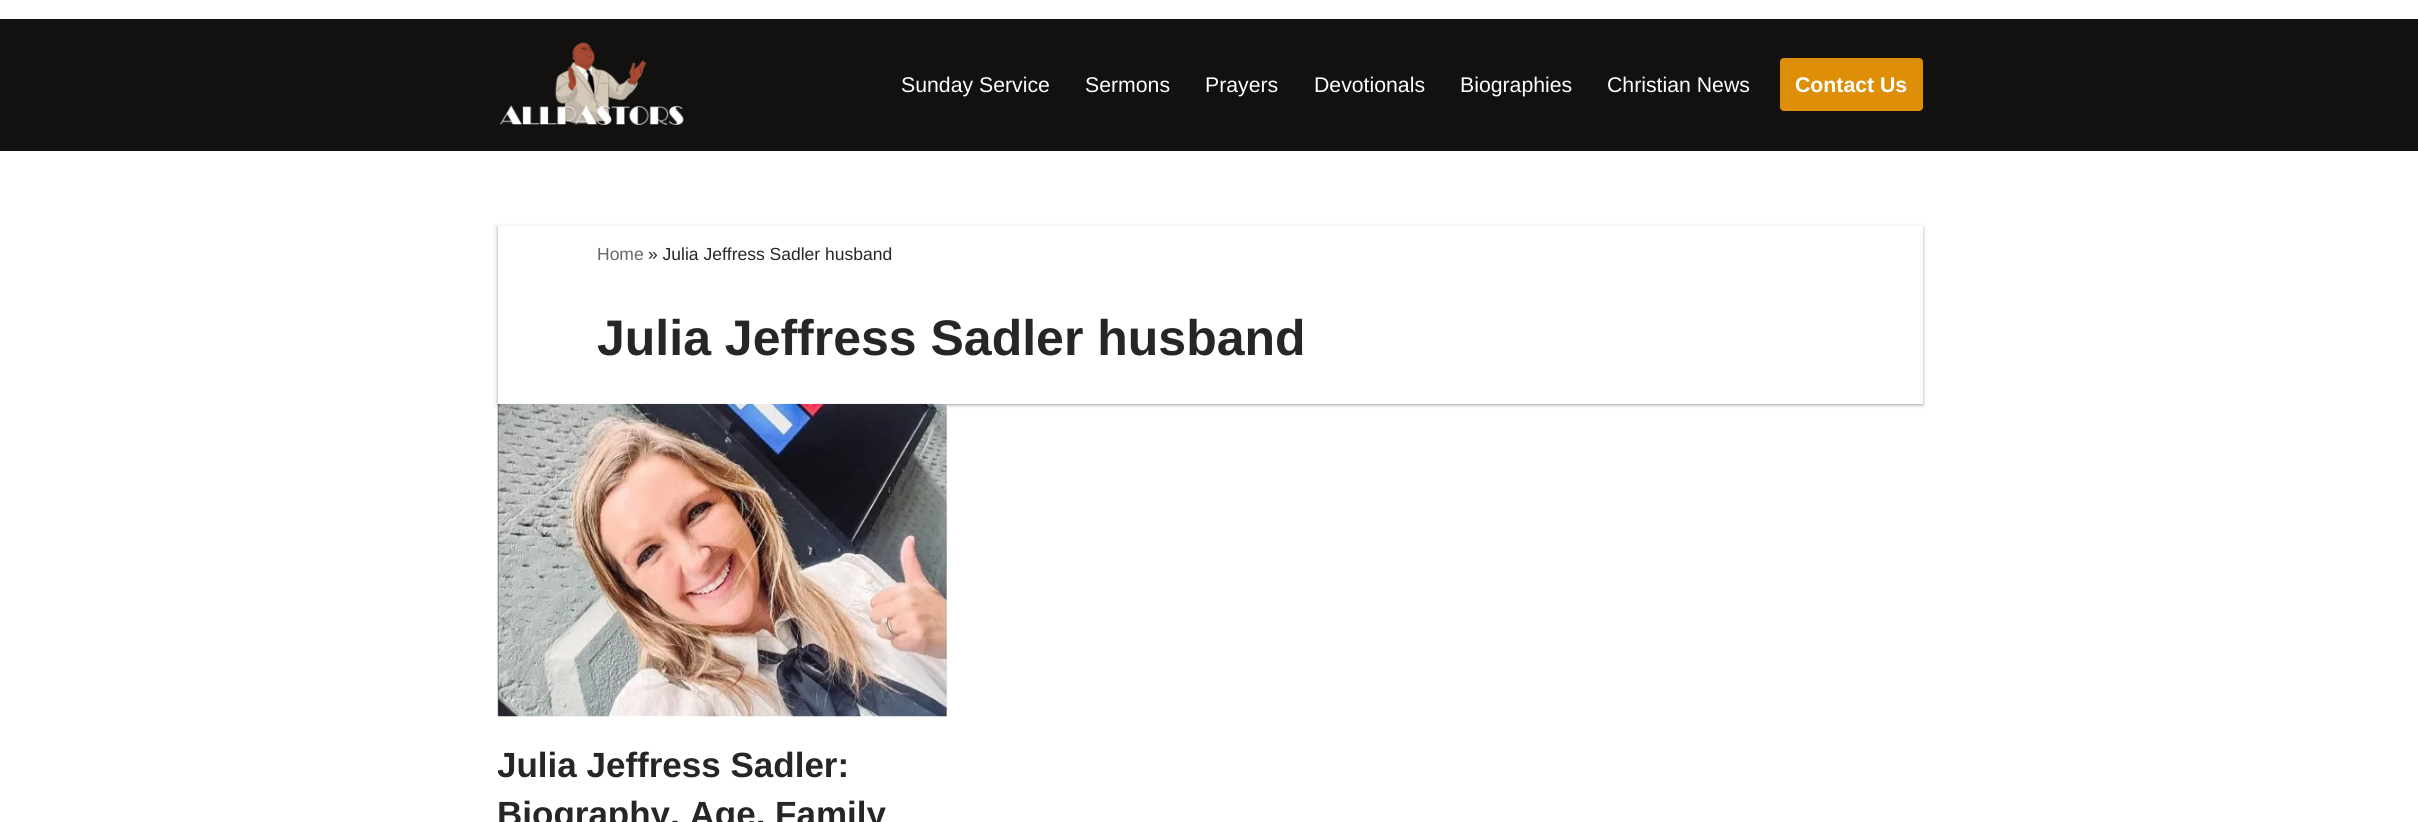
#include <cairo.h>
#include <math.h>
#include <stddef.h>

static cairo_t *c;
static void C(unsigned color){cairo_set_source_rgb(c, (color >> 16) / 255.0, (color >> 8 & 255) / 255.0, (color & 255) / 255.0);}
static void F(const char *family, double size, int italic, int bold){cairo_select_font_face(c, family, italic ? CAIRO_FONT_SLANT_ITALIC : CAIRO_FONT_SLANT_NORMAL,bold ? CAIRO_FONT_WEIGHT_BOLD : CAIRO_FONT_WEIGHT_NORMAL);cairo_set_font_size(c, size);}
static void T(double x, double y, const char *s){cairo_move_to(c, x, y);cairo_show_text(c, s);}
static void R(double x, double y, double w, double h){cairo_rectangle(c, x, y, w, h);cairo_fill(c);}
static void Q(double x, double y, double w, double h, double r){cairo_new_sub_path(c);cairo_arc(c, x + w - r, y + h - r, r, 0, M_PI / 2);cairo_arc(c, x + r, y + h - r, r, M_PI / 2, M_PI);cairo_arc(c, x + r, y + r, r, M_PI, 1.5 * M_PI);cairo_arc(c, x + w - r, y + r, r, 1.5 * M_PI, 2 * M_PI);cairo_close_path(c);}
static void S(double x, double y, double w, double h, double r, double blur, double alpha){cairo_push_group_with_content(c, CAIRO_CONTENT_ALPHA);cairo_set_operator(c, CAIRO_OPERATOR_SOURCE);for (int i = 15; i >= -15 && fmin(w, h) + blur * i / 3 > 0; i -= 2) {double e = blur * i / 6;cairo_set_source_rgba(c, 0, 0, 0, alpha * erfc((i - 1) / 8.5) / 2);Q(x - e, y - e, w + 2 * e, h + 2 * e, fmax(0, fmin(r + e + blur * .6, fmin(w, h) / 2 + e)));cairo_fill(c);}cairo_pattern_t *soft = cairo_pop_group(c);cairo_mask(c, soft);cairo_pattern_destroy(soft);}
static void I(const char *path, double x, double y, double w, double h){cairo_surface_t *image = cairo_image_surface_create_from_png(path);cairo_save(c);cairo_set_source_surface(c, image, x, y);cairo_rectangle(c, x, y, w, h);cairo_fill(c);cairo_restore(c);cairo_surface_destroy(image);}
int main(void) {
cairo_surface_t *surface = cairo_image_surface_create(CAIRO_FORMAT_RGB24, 2418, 822);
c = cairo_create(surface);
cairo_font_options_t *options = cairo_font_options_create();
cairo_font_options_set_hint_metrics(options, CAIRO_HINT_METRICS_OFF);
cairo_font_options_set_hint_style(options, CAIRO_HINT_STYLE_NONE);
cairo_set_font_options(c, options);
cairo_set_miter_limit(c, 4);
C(0xffffff);
cairo_paint(c);
C(0x131010);
R(0,19,2418,132);
I("1.png",500,42,184,84);
F("Liberation Sans",21.25,0,0);
C(0xffffff);
T(901,92,"Sunday Service");
T(1085,92,"Sermons");
T(1205,92,"Prayers");
T(1314,92,"Devotionals");
T(1460,92,"Biographies");
T(1607,92,"Christian News");
C(0xde8f07);
Q(1780,58,143,53,4);
cairo_fill(c);
F("Liberation Sans",21.25,0,1);
C(0xffffff);
T(1795,92,"Contact Us");
cairo_save(c);
cairo_set_fill_rule(c,CAIRO_FILL_RULE_EVEN_ODD);
cairo_new_path(c);
cairo_move_to(c,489,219);
cairo_line_to(c,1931,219);
cairo_line_to(c,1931,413);
cairo_line_to(c,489,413);
cairo_close_path(c);
cairo_move_to(c,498,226);
cairo_line_to(c,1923,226);
cairo_line_to(c,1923,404);
cairo_line_to(c,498,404);
cairo_close_path(c);
cairo_clip(c);
C(0x303030);
S(496,226,1428,180,0,2,.15);
cairo_restore(c);
cairo_save(c);
cairo_set_fill_rule(c,CAIRO_FILL_RULE_EVEN_ODD);
cairo_new_path(c);
cairo_move_to(c,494,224);
cairo_line_to(c,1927,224);
cairo_line_to(c,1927,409);
cairo_line_to(c,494,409);
cairo_close_path(c);
cairo_move_to(c,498,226);
cairo_line_to(c,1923,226);
cairo_line_to(c,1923,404);
cairo_line_to(c,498,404);
cairo_close_path(c);
cairo_clip(c);
C(0x303030);
S(498,228,1425,177,0,1,.3);
cairo_restore(c);
F("Liberation Sans",17.5,0,0);
C(0x676767);
T(597,260,"Home");
C(0x272626);
T(648,260,"» Julia Jeffress Sadler husband");
F("Liberation Sans",50,0,1);
T(597,355,"Julia Jeffress Sadler husband");
I("2.png",497,403,451,314);
cairo_save(c);
cairo_rectangle(c,498,404,450,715);
cairo_clip(c);
F("Liberation Sans",35,0,1);
T(497,777,"Julia Jeffress Sadler:");
cairo_restore(c);
F("Liberation Sans",35,0,1);
T(497,826,"Biography, Age, Family");
cairo_surface_write_to_png(surface, "o.png");
cairo_font_options_destroy(options);
cairo_destroy(c);
cairo_surface_destroy(surface);
return 0;
}
